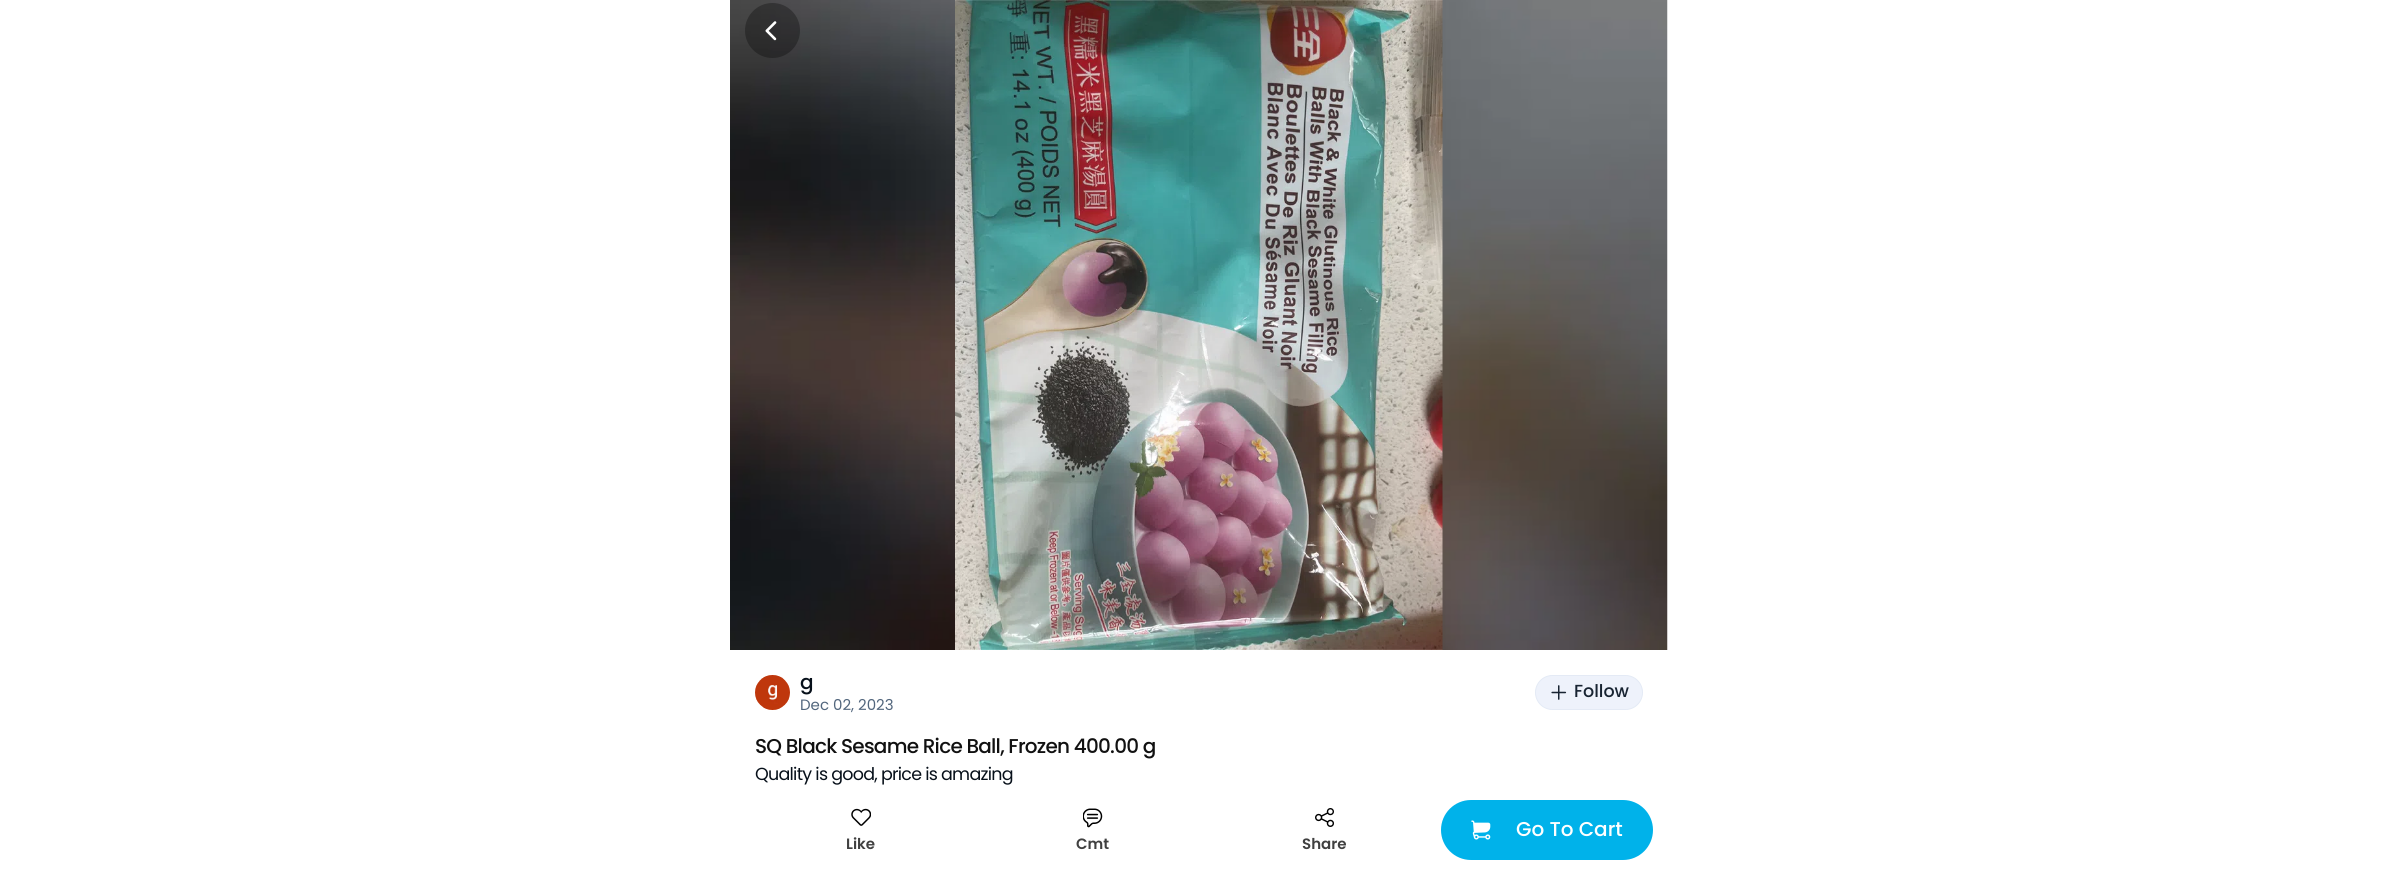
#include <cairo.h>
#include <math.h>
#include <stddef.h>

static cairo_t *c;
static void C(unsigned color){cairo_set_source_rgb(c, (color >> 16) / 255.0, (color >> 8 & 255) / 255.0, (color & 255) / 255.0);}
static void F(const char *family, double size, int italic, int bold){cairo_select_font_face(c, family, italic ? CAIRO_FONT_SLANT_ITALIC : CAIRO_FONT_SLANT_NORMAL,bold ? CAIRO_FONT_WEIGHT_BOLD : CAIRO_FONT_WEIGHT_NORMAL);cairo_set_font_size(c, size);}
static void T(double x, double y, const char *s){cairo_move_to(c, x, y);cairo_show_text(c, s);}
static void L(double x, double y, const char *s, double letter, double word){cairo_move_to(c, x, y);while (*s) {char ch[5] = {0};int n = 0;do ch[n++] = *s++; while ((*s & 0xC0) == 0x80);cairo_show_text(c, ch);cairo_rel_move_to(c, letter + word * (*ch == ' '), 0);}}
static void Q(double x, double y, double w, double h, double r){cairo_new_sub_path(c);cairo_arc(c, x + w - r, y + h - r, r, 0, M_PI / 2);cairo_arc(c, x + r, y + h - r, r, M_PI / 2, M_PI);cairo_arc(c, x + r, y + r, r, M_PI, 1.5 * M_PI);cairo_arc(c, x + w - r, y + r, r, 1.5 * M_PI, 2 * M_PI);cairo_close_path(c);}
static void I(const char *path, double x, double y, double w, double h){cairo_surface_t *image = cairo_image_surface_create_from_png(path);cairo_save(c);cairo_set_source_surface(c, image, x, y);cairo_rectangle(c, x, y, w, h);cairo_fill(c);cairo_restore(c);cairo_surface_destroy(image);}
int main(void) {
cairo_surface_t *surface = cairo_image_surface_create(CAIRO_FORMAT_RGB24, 2397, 884);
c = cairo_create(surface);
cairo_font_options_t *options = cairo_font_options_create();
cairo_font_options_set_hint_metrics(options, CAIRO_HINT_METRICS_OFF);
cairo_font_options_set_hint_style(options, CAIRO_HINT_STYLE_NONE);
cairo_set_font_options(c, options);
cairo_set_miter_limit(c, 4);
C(0xffffff);
cairo_paint(c);
I("2.png",730,0,938,650);
cairo_set_source_rgba(c,0,0,0,0.3);
cairo_arc(c,772.5,30.5,27.5,0,2 * M_PI);
cairo_fill(c);
I("1.png",765,21,12,20);
I("3.png",955,0,488,650);
I("4.png",755,675,35,35);
F("Poppins Medium",20,0,0);
C(0x07101a);
T(800,689,"g");
F("Poppins",15,0,0);
C(0x52667d);
T(800,710,"Dec 02, 2023");
C(0xeef2fb);
Q(1535.5,675.5,107,34,17);
cairo_fill_preserve(c);
C(0xe4eaf5);
cairo_set_line_width(c,1);
cairo_stroke(c);
I("5.png",1551,685,16,15);
F("Poppins Medium",17.5,0,0);
C(0x182432);
T(1574,697,"Follow");
F("Poppins Medium",20,0,0);
C(0x111111);
L(755,753,"SQ Black Sesame Rice Ball, Frozen 400.00 g",-.75,0);
F("Poppins",17.5,0,0);
C(0x07101a);
L(755,780,"Quality is good, price is amazing",-.75,0);
C(0x00b2ea);
Q(1441,800,212,60,30);
cairo_fill(c);
I("6.png",1471,820,20,20);
F("Poppins Medium",20,0,0);
C(0xffffff);
T(1516,836,"Go To Cart");
I("7.png",851,808,20,18);
F("Poppins SemiBold",15,0,0);
C(0x404040);
T(846,849,"Like");
I("8.png",1083,808,20,20);
T(1076,849,"Cmt");
I("9.png",1315,808,19,19);
T(1302,849,"Share");
cairo_surface_write_to_png(surface, "o.png");
cairo_font_options_destroy(options);
cairo_destroy(c);
cairo_surface_destroy(surface);
return 0;
}
